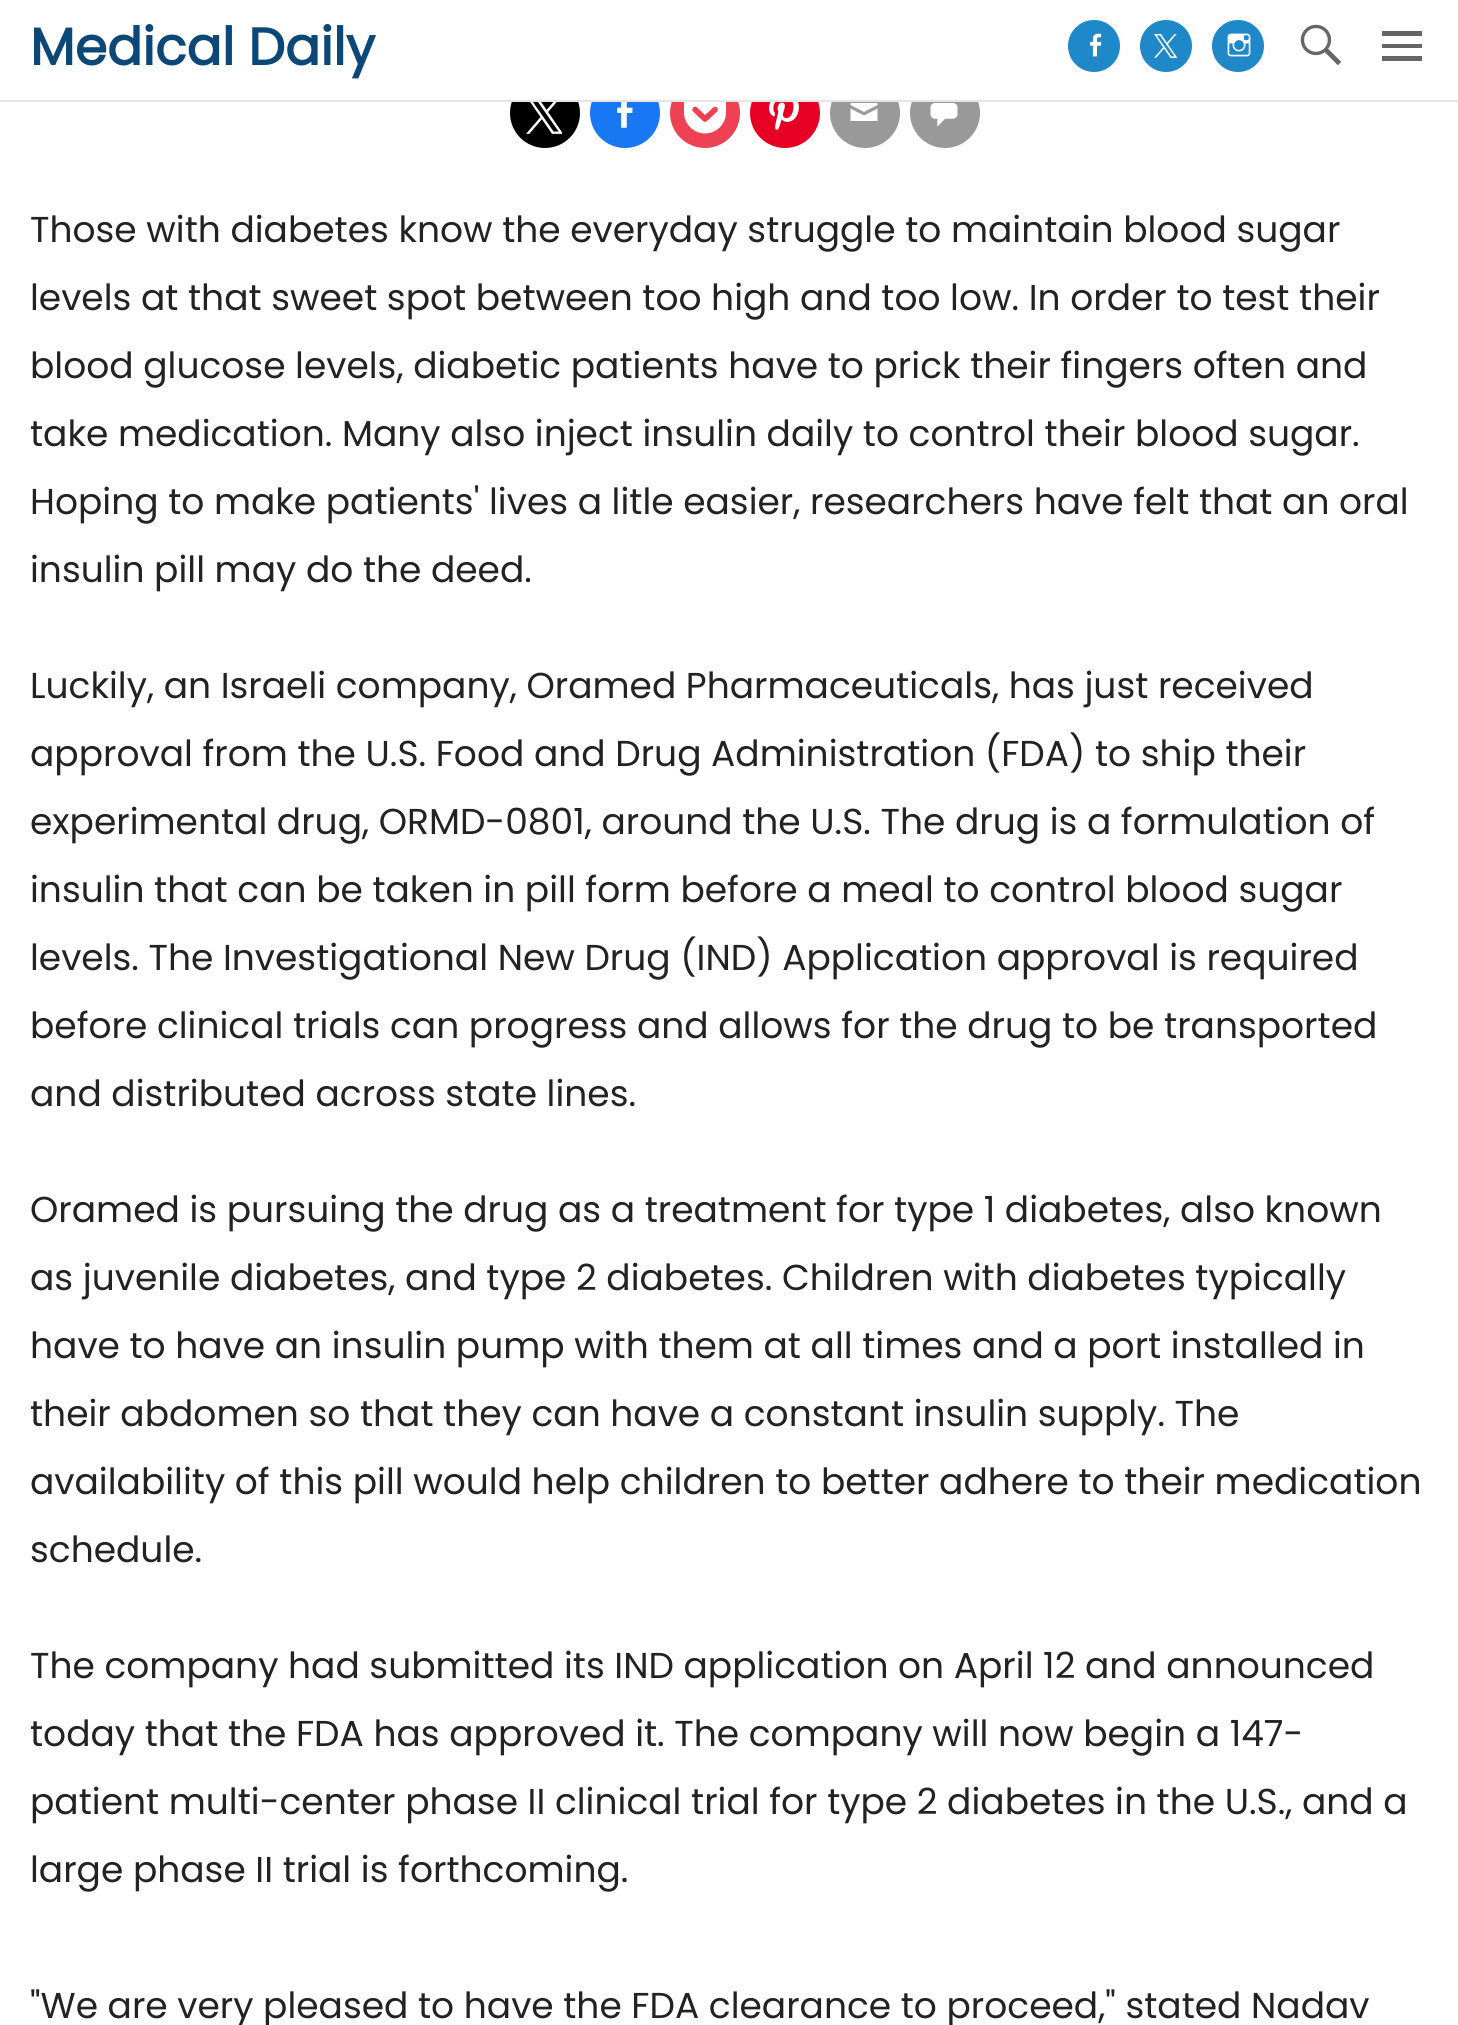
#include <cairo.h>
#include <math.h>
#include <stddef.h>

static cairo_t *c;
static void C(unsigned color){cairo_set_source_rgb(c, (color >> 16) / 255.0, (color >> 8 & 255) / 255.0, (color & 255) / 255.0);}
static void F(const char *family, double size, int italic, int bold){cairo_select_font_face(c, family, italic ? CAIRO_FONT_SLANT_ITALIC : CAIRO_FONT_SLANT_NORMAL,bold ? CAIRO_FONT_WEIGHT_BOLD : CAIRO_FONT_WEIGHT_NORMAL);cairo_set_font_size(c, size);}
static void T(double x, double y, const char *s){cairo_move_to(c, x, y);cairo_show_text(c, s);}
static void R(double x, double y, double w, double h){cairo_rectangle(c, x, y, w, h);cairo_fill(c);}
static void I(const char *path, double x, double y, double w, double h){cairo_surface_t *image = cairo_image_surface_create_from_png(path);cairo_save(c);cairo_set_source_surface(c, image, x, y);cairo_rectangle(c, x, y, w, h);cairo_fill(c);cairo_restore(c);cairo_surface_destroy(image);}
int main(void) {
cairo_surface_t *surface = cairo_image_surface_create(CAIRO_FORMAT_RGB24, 1458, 2025);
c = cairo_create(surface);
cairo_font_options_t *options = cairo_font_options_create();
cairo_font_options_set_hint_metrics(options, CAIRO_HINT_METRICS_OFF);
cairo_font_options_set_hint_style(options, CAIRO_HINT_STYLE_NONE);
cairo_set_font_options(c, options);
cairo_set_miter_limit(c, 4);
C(0xffffff);
cairo_paint(c);
C(0x000000);
cairo_arc(c,545,113,35,0,2 * M_PI);
cairo_fill(c);
C(0x1877f2);
cairo_arc(c,625,113,35,0,2 * M_PI);
cairo_fill(c);
C(0xef4154);
cairo_arc(c,705,113,35,0,2 * M_PI);
cairo_fill(c);
C(0xe60023);
cairo_arc(c,785,113,35,0,2 * M_PI);
cairo_fill(c);
C(0x999999);
cairo_arc(c,865,113,35,0,2 * M_PI);
cairo_fill(c);
cairo_arc(c,945,113,35,0,2 * M_PI);
cairo_fill(c);
C(0xffffff);
R(512,78,466,22);
C(0xe5e5e5);
R(0,100,1458,2);
F("Poppins",52,0,1);
C(0x0b4777);
T(30,65,"Medical Daily");
C(0x1f88c9);
cairo_new_path(c);
cairo_arc(c,1094,46,26,0,2 * M_PI);
cairo_fill(c);
I("1.png",1090,33,12,24);
cairo_arc(c,1166,46,26,0,2 * M_PI);
cairo_fill(c);
I("2.png",1154,34,24,24);
cairo_arc(c,1238,46,26,0,2 * M_PI);
cairo_fill(c);
I("3.png",1227,33,24,24);
I("4.png",1300,24,42,42);
C(0x666666);
cairo_new_path(c);
cairo_move_to(c,1382,61);
cairo_line_to(c,1382,56);
cairo_line_to(c,1422,56);
cairo_line_to(c,1422,61);
cairo_close_path(c);
cairo_move_to(c,1382,31);
cairo_line_to(c,1422,31);
cairo_line_to(c,1422,36);
cairo_line_to(c,1382,36);
cairo_close_path(c);
cairo_move_to(c,1382,48);
cairo_line_to(c,1382,44);
cairo_line_to(c,1422,44);
cairo_line_to(c,1422,48);
cairo_close_path(c);
cairo_fill(c);
I("5.png",526,102,36,32);
I("6.png",617,102,16,26);
I("7.png",684,102,42,32);
I("8.png",769,102,30,28);
C(0xffffff);
cairo_new_path(c);
cairo_move_to(c,850.5,103);
cairo_line_to(c,877.5,103);
cairo_line_to(c,877.5,105);
cairo_line_to(c,864,112);
cairo_line_to(c,850.5,105);
cairo_close_path(c);
cairo_move_to(c,850.5,108.5);
cairo_line_to(c,864,115.5);
cairo_line_to(c,877.5,108.5);
cairo_line_to(c,877.5,121);
cairo_line_to(c,850.5,121);
cairo_close_path(c);
cairo_fill(c);
I("9.png",930,103,28,24);
F("Poppins",36,0,0);
C(0x222222);
T(30,242,"Those with diabetes know the everyday struggle to maintain blood sugar");
T(30,310,"levels at that sweet spot between too high and too low. In order to test their");
T(30,378,"blood glucose levels, diabetic patients have to prick their fingers often and");
T(30,446,"take medication. Many also inject insulin daily to control their blood sugar.");
T(30,514,"Hoping to make patients' lives a litle easier, researchers have felt that an oral");
T(30,582,"insulin pill may do the deed.");
T(30,698,"Luckily, an Israeli company, Oramed Pharmaceuticals, has just received");
T(30,766,"approval from the U.S. Food and Drug Administration (FDA) to ship their");
T(30,834,"experimental drug, ORMD-0801, around the U.S. The drug is a formulation of");
T(30,902,"insulin that can be taken in pill form before a meal to control blood sugar");
T(30,970,"levels. The Investigational New Drug (IND) Application approval is required");
T(30,1038,"before clinical trials can progress and allows for the drug to be transported");
T(30,1106,"and distributed across state lines.");
T(30,1222,"Oramed is pursuing the drug as a treatment for type 1 diabetes, also known");
T(30,1290,"as juvenile diabetes, and type 2 diabetes. Children with diabetes typically");
T(30,1358,"have to have an insulin pump with them at all times and a port installed in");
T(30,1426,"their abdomen so that they can have a constant insulin supply. The");
T(30,1494,"availability of this pill would help children to better adhere to their medication");
T(30,1562,"schedule.");
T(30,1678,"The company had submitted its IND application on April 12 and announced");
T(30,1746,"today that the FDA has approved it. The company will now begin a 147-");
T(30,1814,"patient multi-center phase II clinical trial for type 2 diabetes in the U.S., and a");
T(30,1882,"large phase II trial is forthcoming.");
T(30,2018,"\"We are very pleased to have the FDA clearance to proceed,\" stated Nadav");
cairo_surface_write_to_png(surface, "o.png");
cairo_font_options_destroy(options);
cairo_destroy(c);
cairo_surface_destroy(surface);
return 0;
}
